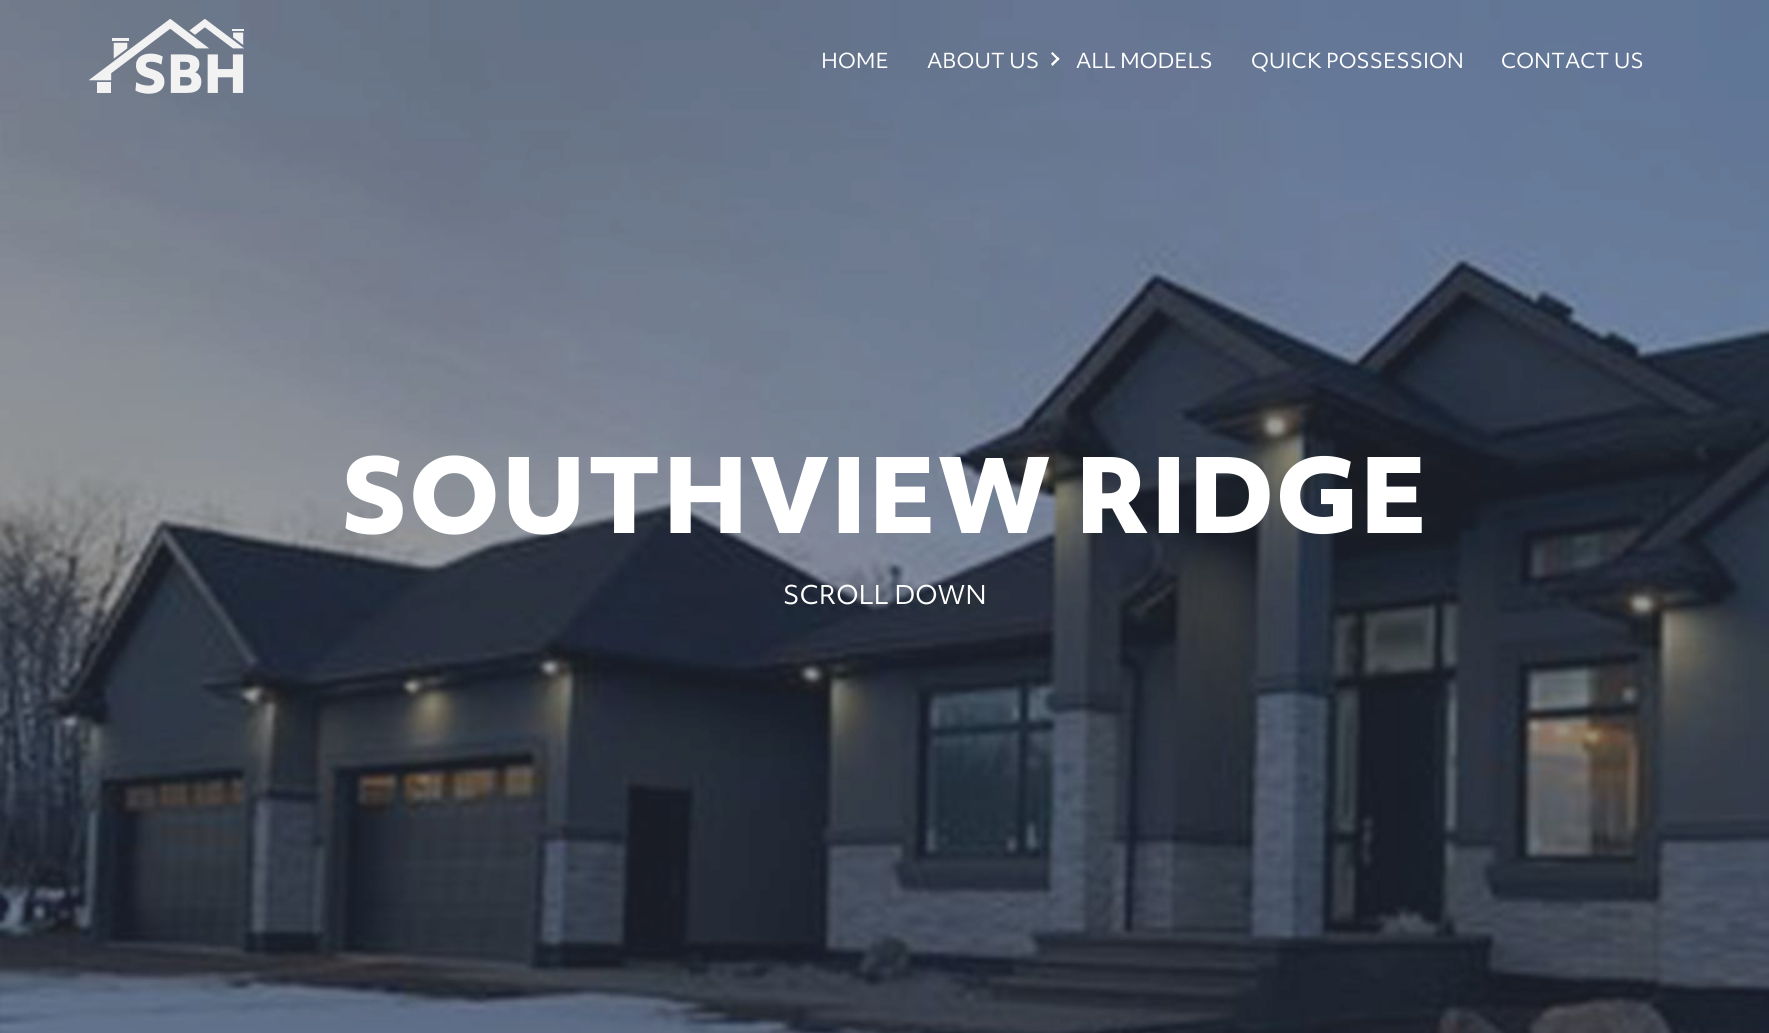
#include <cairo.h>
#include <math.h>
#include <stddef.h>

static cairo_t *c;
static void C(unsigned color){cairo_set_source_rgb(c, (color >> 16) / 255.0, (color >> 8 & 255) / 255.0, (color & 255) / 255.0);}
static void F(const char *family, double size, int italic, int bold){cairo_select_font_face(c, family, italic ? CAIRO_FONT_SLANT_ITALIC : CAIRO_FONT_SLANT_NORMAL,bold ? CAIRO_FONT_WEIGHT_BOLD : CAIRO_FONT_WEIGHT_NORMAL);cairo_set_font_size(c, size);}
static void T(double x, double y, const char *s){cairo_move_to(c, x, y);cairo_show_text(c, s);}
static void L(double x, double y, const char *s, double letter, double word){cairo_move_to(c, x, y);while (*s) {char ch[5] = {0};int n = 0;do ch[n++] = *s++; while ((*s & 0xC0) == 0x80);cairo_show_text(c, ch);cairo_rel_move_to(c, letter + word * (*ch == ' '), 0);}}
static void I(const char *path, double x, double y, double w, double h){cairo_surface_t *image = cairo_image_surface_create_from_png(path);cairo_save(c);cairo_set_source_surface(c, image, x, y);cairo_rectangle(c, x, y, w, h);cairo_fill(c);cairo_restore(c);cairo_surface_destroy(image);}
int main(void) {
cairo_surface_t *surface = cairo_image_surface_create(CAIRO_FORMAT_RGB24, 1769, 1033);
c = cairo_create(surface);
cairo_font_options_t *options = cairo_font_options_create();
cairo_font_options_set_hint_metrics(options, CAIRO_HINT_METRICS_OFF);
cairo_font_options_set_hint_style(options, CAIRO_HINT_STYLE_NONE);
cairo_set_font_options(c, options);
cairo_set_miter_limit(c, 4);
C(0xffffff);
cairo_paint(c);
I("2.png",0,0,1769,1033);
I("1.png",89,19,155,75);
F("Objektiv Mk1",20,0,0);
C(0xffffff);
T(821,68,"HOME");
T(927,68,"ABOUT US");
cairo_new_path(c);
cairo_move_to(c,1052.5,52);
cairo_line_to(c,1059.5,59);
cairo_line_to(c,1058,60.5);
cairo_line_to(c,1051,53.5);
cairo_close_path(c);
cairo_fill(c);
cairo_new_path(c);
cairo_move_to(c,1058,57);
cairo_line_to(c,1059.5,59);
cairo_line_to(c,1052.5,66);
cairo_line_to(c,1051,64);
cairo_close_path(c);
cairo_fill(c);
T(1076,68,"ALL MODELS");
T(1251,68,"QUICK POSSESSION");
T(1501,68,"CONTACT US");
F("Objektiv Mk1",100,0,1);
L(341,533,"SOUTHVIEW RIDGE",1.25,0);
F("Objektiv Mk1",25,0,0);
T(783,604,"SCROLL DOWN");
cairo_surface_write_to_png(surface, "o.png");
cairo_font_options_destroy(options);
cairo_destroy(c);
cairo_surface_destroy(surface);
return 0;
}
